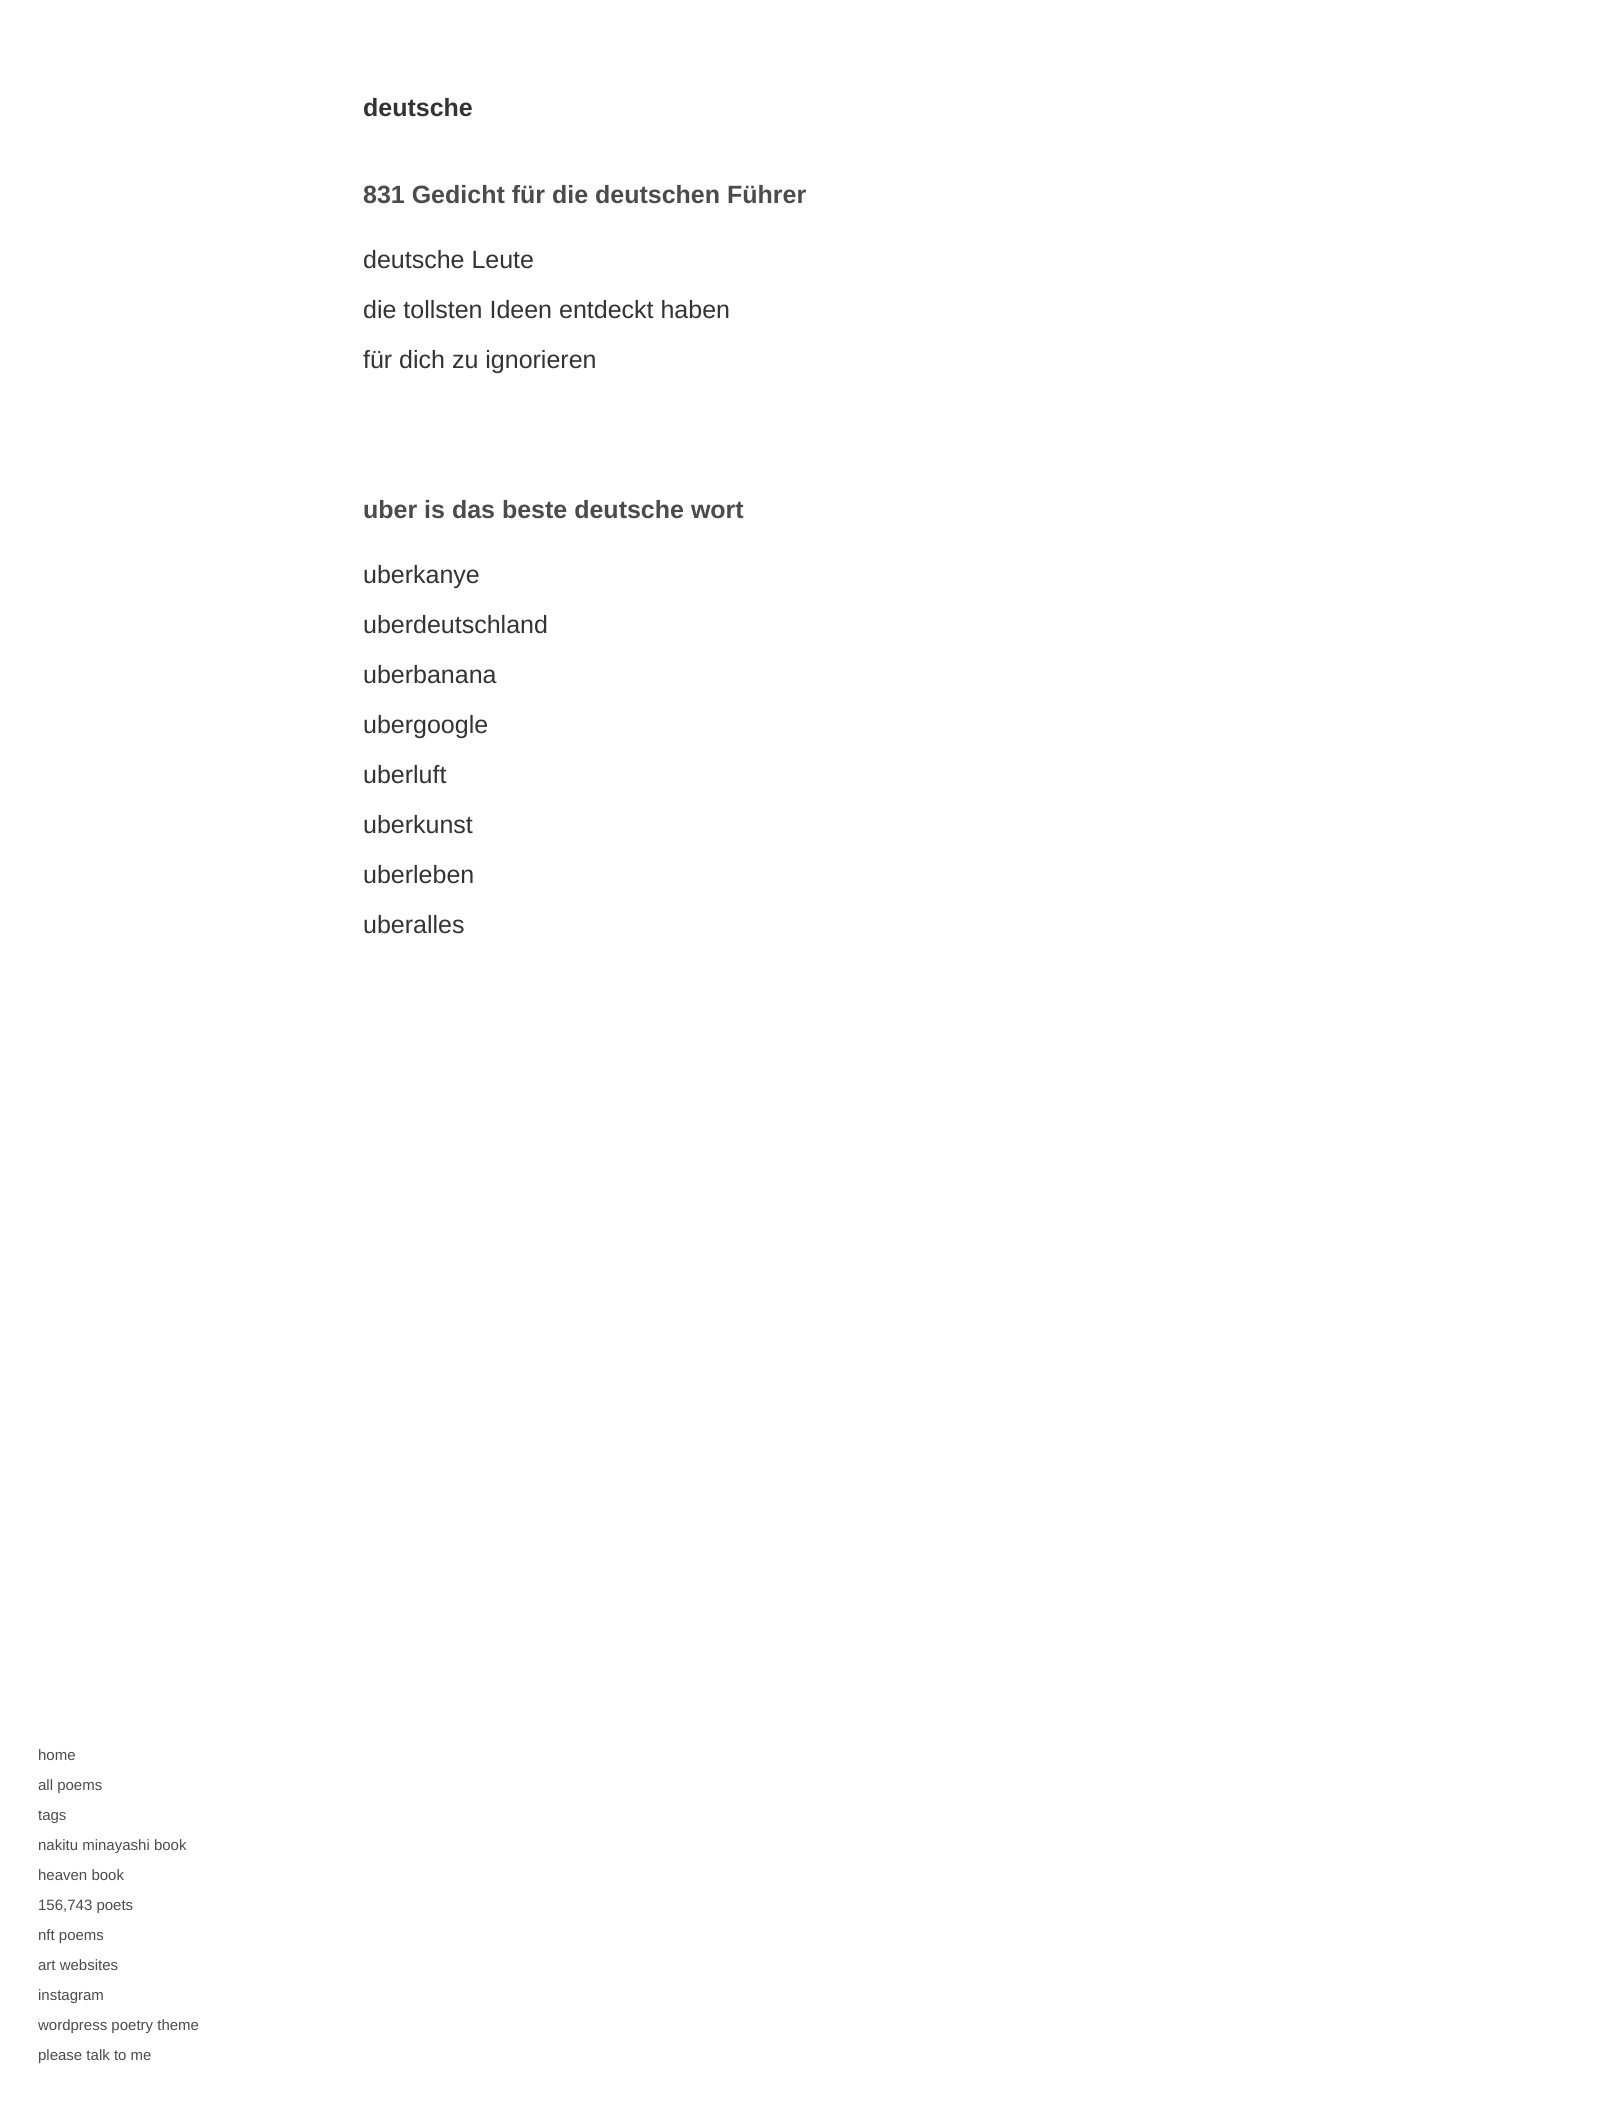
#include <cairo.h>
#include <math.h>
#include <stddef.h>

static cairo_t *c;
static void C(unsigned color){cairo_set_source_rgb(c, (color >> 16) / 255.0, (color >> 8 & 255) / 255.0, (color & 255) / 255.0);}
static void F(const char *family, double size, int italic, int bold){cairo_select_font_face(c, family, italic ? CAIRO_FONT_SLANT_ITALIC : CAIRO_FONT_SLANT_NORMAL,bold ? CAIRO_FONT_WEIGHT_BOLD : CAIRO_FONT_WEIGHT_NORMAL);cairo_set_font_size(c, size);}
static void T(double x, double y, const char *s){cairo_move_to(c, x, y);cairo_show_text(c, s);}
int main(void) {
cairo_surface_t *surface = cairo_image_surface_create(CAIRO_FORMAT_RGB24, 1600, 2101);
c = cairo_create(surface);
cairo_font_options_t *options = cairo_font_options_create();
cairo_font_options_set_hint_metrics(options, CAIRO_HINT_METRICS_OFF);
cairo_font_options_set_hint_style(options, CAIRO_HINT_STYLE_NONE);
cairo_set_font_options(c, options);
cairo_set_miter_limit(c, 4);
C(0xffffff);
cairo_paint(c);
F("Liberation Sans",25,0,1);
C(0x333333);
T(363,116,"deutsche");
C(0x4b4b4b);
T(363,203,"831 Gedicht für die deutschen Führer");
F("Liberation Sans",25,0,0);
C(0x333333);
T(363,268,"deutsche Leute");
T(363,318,"die tollsten Ideen entdeckt haben");
T(363,368,"für dich zu ignorieren");
F("Liberation Sans",25,0,1);
C(0x4b4b4b);
T(363,518,"uber is das beste deutsche wort");
F("Liberation Sans",25,0,0);
C(0x333333);
T(363,583,"uberkanye");
T(363,633,"uberdeutschland");
T(363,683,"uberbanana");
T(363,733,"ubergoogle");
T(363,783,"uberluft");
T(363,833,"uberkunst");
T(363,883,"uberleben");
T(363,933,"uberalles");
F("Liberation Sans",15,0,0);
C(0x4b4b4b);
T(38,1760,"home");
T(38,1790,"all poems");
T(38,1820,"tags");
T(38,1850,"nakitu minayashi book");
T(38,1880,"heaven book");
T(38,1910,"156,743 poets");
T(38,1940,"nft poems");
T(38,1970,"art websites");
T(38,2000,"instagram");
T(38,2030,"wordpress poetry theme");
T(38,2060,"please talk to me");
cairo_surface_write_to_png(surface, "o.png");
cairo_font_options_destroy(options);
cairo_destroy(c);
cairo_surface_destroy(surface);
return 0;
}
